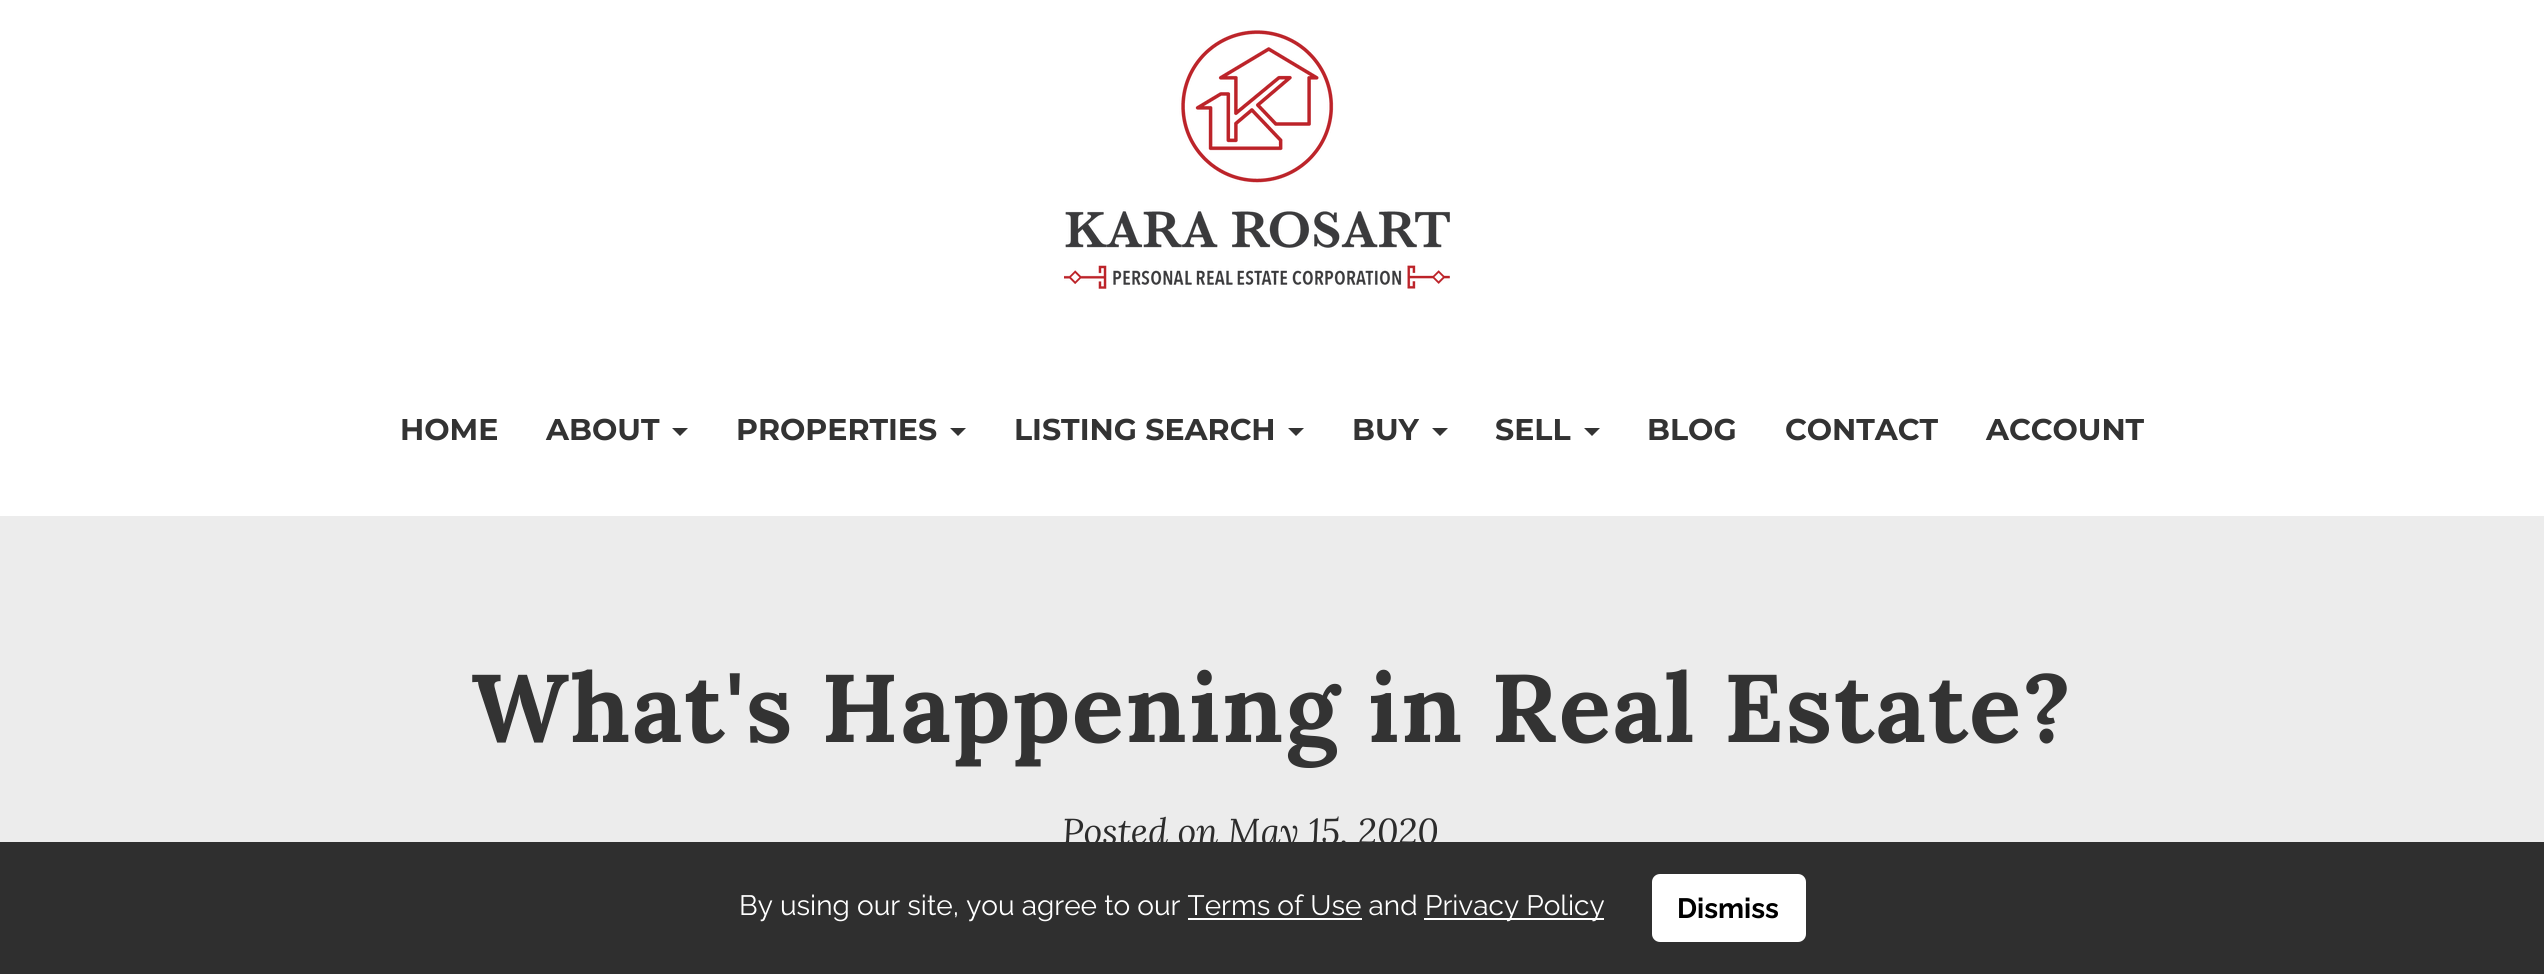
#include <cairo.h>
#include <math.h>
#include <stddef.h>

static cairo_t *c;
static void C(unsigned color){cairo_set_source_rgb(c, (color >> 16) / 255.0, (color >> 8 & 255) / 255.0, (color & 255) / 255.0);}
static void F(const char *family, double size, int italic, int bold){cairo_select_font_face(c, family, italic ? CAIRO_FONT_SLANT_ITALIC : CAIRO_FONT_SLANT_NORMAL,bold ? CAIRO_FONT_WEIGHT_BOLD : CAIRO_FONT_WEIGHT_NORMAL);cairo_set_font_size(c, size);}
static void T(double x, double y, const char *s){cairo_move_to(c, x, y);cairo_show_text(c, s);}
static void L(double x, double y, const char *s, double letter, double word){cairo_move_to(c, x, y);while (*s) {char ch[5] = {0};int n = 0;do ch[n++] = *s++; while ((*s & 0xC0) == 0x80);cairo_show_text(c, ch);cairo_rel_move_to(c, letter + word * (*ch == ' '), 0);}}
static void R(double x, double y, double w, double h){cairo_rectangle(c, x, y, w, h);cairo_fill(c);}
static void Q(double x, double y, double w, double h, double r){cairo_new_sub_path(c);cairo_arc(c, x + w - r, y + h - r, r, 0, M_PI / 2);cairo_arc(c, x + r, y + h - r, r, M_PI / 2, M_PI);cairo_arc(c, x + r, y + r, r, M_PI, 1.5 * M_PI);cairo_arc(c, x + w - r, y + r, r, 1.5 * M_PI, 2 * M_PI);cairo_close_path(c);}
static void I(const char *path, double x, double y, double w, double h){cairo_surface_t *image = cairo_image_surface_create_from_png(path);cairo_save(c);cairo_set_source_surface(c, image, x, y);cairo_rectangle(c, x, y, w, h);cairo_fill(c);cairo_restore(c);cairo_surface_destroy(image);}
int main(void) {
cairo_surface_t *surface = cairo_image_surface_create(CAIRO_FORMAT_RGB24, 2544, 974);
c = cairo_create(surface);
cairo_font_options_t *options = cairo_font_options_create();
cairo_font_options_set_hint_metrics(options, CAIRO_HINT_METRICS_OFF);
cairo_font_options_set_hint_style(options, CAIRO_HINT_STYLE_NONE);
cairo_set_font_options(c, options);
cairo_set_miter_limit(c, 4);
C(0xffffff);
cairo_paint(c);
I("1.png",1064,30,386,259);
F("Montserrat",30,0,1);
C(0x333333);
T(400,440,"HOME");
T(546,440,"ABOUT");
cairo_new_path(c);
cairo_move_to(c,672,428);
cairo_line_to(c,688,428);
cairo_line_to(c,680,436);
cairo_close_path(c);
cairo_fill(c);
T(736,440,"PROPERTIES");
cairo_new_path(c);
cairo_move_to(c,950,428);
cairo_line_to(c,966,428);
cairo_line_to(c,958,436);
cairo_close_path(c);
cairo_fill(c);
T(1014,440,"LISTING SEARCH");
cairo_new_path(c);
cairo_move_to(c,1288,428);
cairo_line_to(c,1304,428);
cairo_line_to(c,1296,436);
cairo_close_path(c);
cairo_fill(c);
T(1352,440,"BUY");
cairo_new_path(c);
cairo_move_to(c,1432,428);
cairo_line_to(c,1448,428);
cairo_line_to(c,1440,436);
cairo_close_path(c);
cairo_fill(c);
T(1495,440,"SELL");
cairo_new_path(c);
cairo_move_to(c,1584,428);
cairo_line_to(c,1600,428);
cairo_line_to(c,1592,436);
cairo_close_path(c);
cairo_fill(c);
T(1647,440,"BLOG");
T(1785,440,"CONTACT");
T(1986,440,"ACCOUNT");
C(0xececec);
R(0,516,2544,326);
F("Lora",96,0,1);
C(0x333333);
L(471,742,"What's Happening in Real Estate?",1.9,0);
F("Lora",36,1,0);
C(0x2c2c2c);
T(1062,844,"Posted on May 15, 2020");
C(0x2f2f2f);
R(0,842,2544,132);
F("Raleway",28,0,0);
C(0xffffff);
T(739,915,"By using our site, you agree to our Terms of Use and");
R(1424,918,180,2);
T(1425,915,"Privacy Policy");
Q(1652,874,154,68,8);
cairo_fill(c);
F("Raleway",28,0,1);
C(0x000000);
T(1677,918,"Dismiss");
C(0xffffff);
R(1188,918,174,2);
cairo_surface_write_to_png(surface, "o.png");
cairo_font_options_destroy(options);
cairo_destroy(c);
cairo_surface_destroy(surface);
return 0;
}
